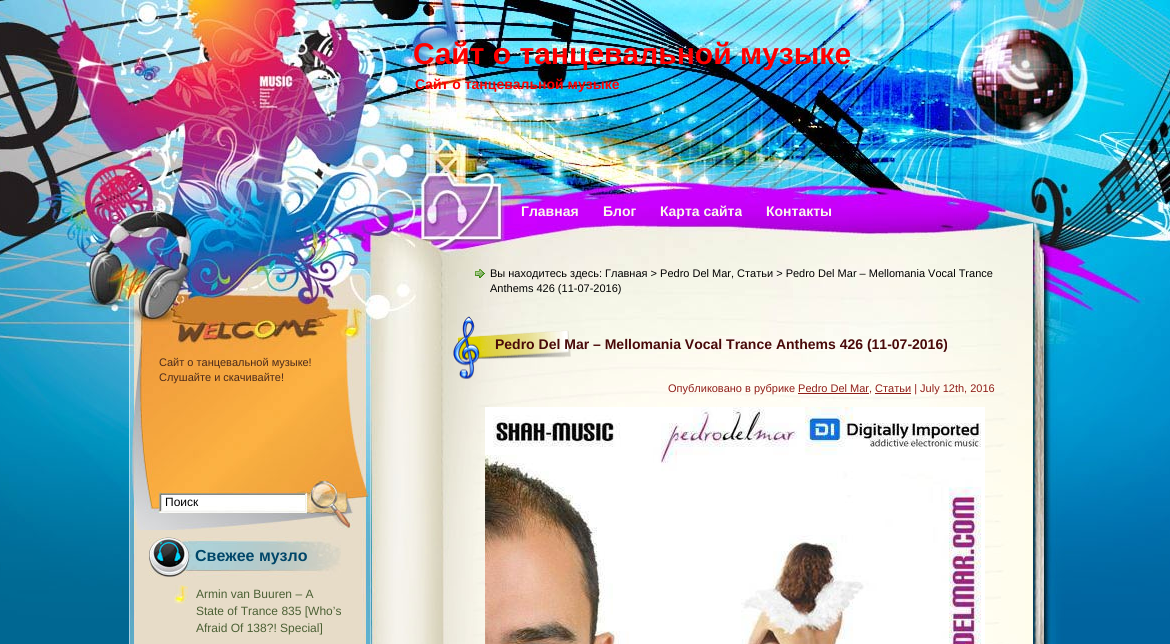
#include <cairo.h>
#include <math.h>
#include <stddef.h>

static cairo_t *c;
static void C(unsigned color){cairo_set_source_rgb(c, (color >> 16) / 255.0, (color >> 8 & 255) / 255.0, (color & 255) / 255.0);}
static void F(const char *family, double size, int italic, int bold){cairo_select_font_face(c, family, italic ? CAIRO_FONT_SLANT_ITALIC : CAIRO_FONT_SLANT_NORMAL,bold ? CAIRO_FONT_WEIGHT_BOLD : CAIRO_FONT_WEIGHT_NORMAL);cairo_set_font_size(c, size);}
static void T(double x, double y, const char *s){cairo_move_to(c, x, y);cairo_show_text(c, s);}
static void R(double x, double y, double w, double h){cairo_rectangle(c, x, y, w, h);cairo_fill(c);}
static void I(const char *path, double x, double y, double w, double h){cairo_surface_t *image = cairo_image_surface_create_from_png(path);cairo_save(c);cairo_set_source_surface(c, image, x, y);cairo_rectangle(c, x, y, w, h);cairo_fill(c);cairo_restore(c);cairo_surface_destroy(image);}
int main(void) {
cairo_surface_t *surface = cairo_image_surface_create(CAIRO_FORMAT_RGB24, 1170, 644);
c = cairo_create(surface);
cairo_font_options_t *options = cairo_font_options_create();
cairo_font_options_set_hint_metrics(options, CAIRO_HINT_METRICS_OFF);
cairo_font_options_set_hint_style(options, CAIRO_HINT_STYLE_NONE);
cairo_set_font_options(c, options);
cairo_set_miter_limit(c, 4);
C(0xffffff);
cairo_paint(c);
I("1.png",0,0,1170,354);
I("2.png",0,354,1170,290);
F("Liberation Sans",30,0,1);
C(0xff0000);
T(413,64,"Сайт о танцевальной музыке");
F("Liberation Sans",14,0,1);
T(415,89,"Сайт о танцевальной музыке");
C(0xfaf8ed);
T(521,216,"Главная");
T(603,216,"Блог");
T(660,216,"Карта сайта");
T(766,216,"Контакты");
I("3.png",475,269,10,9);
F("Liberation Sans",11,0,0);
C(0x000000);
T(490,277,"Вы находитесь здесь: Главная > Pedro Del Mar, Статьи > Pedro Del Mar – Mellomania Vocal Trance");
T(490,292,"Anthems 426 (11-07-2016)");
I("4.png",453,316,118,63);
F("Liberation Sans",14,0,1);
C(0x490909);
T(495,349,"Pedro Del Mar – Mellomania Vocal Trance Anthems 426 (11-07-2016)");
F("Liberation Sans",11,0,0);
C(0x901e19);
T(668,392,"Опубликовано в рубрике Pedro Del Mar, Статьи | July 12th, 2016");
R(798,393,71,1);
R(875,393,36,1);
I("5.png",485,407,500,237);
C(0x4c2a1a);
T(159,366,"Сайт о танцевальной музыке!");
T(159,381,"Слушайте и скачивайте!");
F("Liberation Sans",12,0,0);
C(0x000000);
T(165,506,"Поиск");
I("6.png",149,537,192,40);
F("Liberation Sans",16,0,1);
C(0x004669);
T(195,561,"Свежее музло");
I("7.png",174,585,14,19);
F("Liberation Sans",12,0,0);
C(0x4b6034);
T(196,598,"Armin van Buuren – A");
T(196,615,"State of Trance 835 [Who’s");
T(196,632,"Afraid Of 138?! Special]");
cairo_surface_write_to_png(surface, "o.png");
cairo_font_options_destroy(options);
cairo_destroy(c);
cairo_surface_destroy(surface);
return 0;
}
